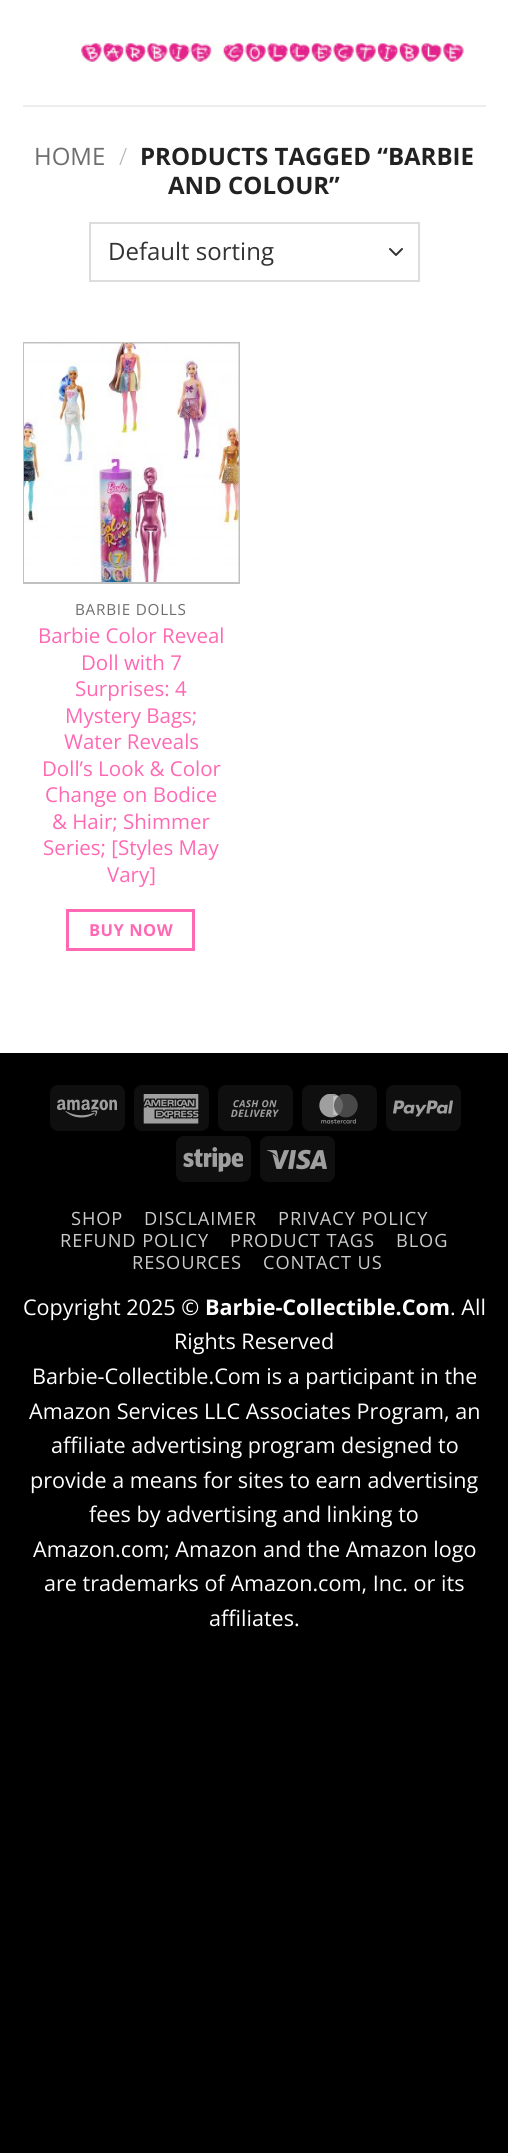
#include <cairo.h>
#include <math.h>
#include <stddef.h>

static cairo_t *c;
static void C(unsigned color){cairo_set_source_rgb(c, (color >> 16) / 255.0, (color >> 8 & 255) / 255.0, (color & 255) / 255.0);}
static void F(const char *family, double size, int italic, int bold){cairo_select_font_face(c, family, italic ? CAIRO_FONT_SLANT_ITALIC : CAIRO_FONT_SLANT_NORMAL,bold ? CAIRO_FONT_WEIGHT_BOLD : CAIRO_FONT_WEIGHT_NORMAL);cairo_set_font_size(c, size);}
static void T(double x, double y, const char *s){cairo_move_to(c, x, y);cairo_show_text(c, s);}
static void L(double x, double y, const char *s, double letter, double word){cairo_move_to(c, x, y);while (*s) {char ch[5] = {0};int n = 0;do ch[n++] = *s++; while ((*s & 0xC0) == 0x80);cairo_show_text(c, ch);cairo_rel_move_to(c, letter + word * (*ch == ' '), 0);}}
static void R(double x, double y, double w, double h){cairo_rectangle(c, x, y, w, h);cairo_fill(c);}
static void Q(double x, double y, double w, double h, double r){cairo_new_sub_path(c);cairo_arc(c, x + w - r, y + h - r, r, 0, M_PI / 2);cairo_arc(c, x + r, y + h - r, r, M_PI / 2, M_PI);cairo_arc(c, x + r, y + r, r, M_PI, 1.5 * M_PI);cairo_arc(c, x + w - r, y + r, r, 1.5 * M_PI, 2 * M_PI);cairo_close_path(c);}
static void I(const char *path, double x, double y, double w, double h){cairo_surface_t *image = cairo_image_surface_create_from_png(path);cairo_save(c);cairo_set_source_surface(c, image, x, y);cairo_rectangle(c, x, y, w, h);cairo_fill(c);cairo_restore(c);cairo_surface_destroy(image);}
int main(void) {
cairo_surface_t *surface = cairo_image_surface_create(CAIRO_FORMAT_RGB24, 508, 2153);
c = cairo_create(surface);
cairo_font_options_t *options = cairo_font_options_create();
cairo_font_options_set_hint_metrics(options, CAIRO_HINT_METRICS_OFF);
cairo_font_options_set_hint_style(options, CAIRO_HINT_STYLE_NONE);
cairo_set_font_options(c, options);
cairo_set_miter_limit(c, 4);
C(0x000000);
cairo_paint(c);
C(0xffffff);
R(0,0,508,1053);
I("1.png",81,43,383,19);
C(0xededed);
R(23,105,463,2);
F("Open Sans",24,0,0);
C(0x6e6e6e);
T(34,165,"HOME");
F("Open Sans Light",24,0,0);
C(0xb2b2b2);
T(119,165,"/");
F("Open Sans",24,0,1);
C(0x222222);
T(140,165,"PRODUCTS TAGGED “BARBIE");
T(168,194,"AND COLOUR”");
cairo_new_path(c);
cairo_move_to(c,390,249);
cairo_line_to(c,396,255);
cairo_line_to(c,402,249);
C(0x333333);
cairo_set_line_cap(c,CAIRO_LINE_CAP_ROUND);
cairo_set_line_join(c,CAIRO_LINE_JOIN_ROUND);
cairo_stroke(c);
cairo_rectangle(c,90,223,329,58);
C(0xdddddd);
cairo_set_line_cap(c,CAIRO_LINE_CAP_BUTT);
cairo_set_line_join(c,CAIRO_LINE_JOIN_MITER);
cairo_stroke(c);
F("Open Sans",24,0,0);
C(0x333333);
T(108,260,"Default sorting");
cairo_rectangle(c,24,343,215,240);
C(0xc0c0c0);
cairo_stroke(c);
I("2.png",24,343,215,239);
F("Open Sans",15.25,0,0);
C(0x6e6e6e);
L(75,615,"BARBIE DOLLS",.75,0);
F("Open Sans",20.5,0,0);
C(0xff69b4);
T(38,643,"Barbie Color Reveal");
T(81,670,"Doll with 7");
T(75,696,"Surprises: 4");
T(65,723,"Mystery Bags;");
T(64,749,"Water Reveals");
T(42,776,"Doll’s Look & Color");
T(45,802,"Change on Bodice");
T(52,829,"& Hair; Shimmer");
T(43,855,"Series; [Styles May");
T(107,882,"Vary]");
cairo_rectangle(c,67.5,910.5,126,39);
cairo_set_line_width(c,3);
cairo_stroke(c);
F("Open Sans",16.5,0,1);
L(89,936,"BUY NOW",.5,0);
C(0x0f0f0f);
Q(50,1085,75,46,8);
cairo_fill(c);
I("3.png",57,1099,60,19);
Q(134,1085,75,46,8);
cairo_fill(c);
I("4.png",143,1094,56,30);
Q(218,1085,75,46,8);
cairo_fill(c);
I("5.png",231,1100,48,17);
Q(302,1085,75,46,8);
cairo_fill(c);
I("6.png",319,1094,39,30);
Q(386,1085,75,46,8);
cairo_fill(c);
I("7.png",393,1100,60,17);
Q(176,1136,75,46,8);
cairo_fill(c);
I("8.png",183,1147,60,25);
Q(260,1136,75,46,8);
cairo_fill(c);
I("9.png",267,1149,60,21);
F("Open Sans",18.25,0,0);
C(0xcccccc);
L(71,1225,"SHOP",.9,0);
L(144,1225,"DISCLAIMER",.9,0);
L(278,1225,"PRIVACY POLICY",.9,0);
L(60,1247,"REFUND POLICY",.9,0);
L(230,1247,"PRODUCT TAGS",.9,0);
L(396,1247,"BLOG",.9,0);
L(132,1269,"RESOURCES",.9,0);
L(263,1269,"CONTACT US",.9,0);
F("Open Sans",21.6,0,0);
C(0xffffff);
T(23,1315,"Copyright 2025 ©");
F("Open Sans",21.6,0,1);
T(205,1315,"Barbie-Collectible.Com");
F("Open Sans",21.6,0,0);
T(450,1315,". All");
T(174,1349,"Rights Reserved");
T(32,1384,"Barbie-Collectible.Com is a participant in the");
T(29,1419,"Amazon Services LLC Associates Program, an");
T(51,1453,"affiliate advertising program designed to");
T(30,1488,"provide a means for sites to earn advertising");
T(89,1522,"fees by advertising and linking to");
T(33,1557,"Amazon.com; Amazon and the Amazon logo");
T(44,1591,"are trademarks of Amazon.com, Inc. or its");
T(209,1626,"affiliates.");
cairo_surface_write_to_png(surface, "o.png");
cairo_font_options_destroy(options);
cairo_destroy(c);
cairo_surface_destroy(surface);
return 0;
}
